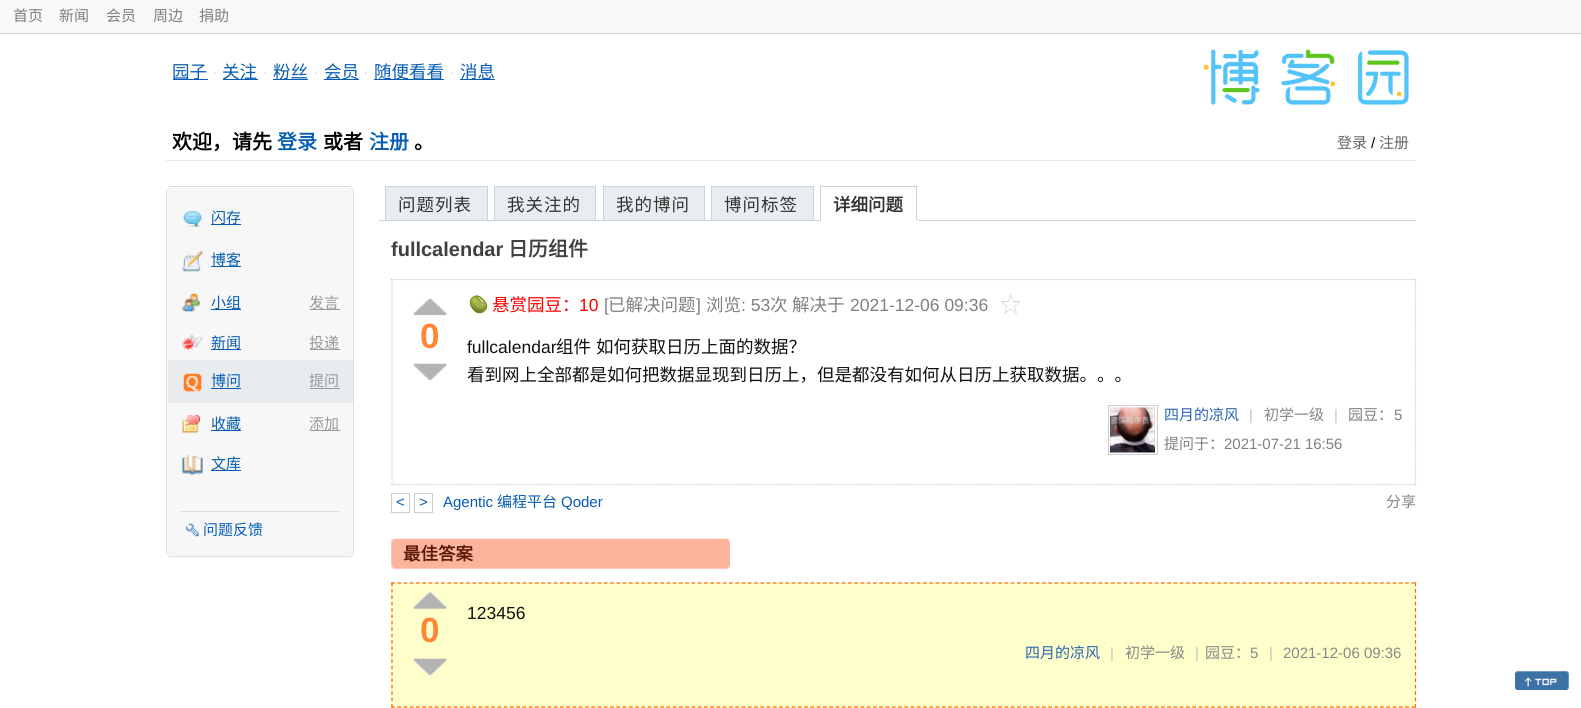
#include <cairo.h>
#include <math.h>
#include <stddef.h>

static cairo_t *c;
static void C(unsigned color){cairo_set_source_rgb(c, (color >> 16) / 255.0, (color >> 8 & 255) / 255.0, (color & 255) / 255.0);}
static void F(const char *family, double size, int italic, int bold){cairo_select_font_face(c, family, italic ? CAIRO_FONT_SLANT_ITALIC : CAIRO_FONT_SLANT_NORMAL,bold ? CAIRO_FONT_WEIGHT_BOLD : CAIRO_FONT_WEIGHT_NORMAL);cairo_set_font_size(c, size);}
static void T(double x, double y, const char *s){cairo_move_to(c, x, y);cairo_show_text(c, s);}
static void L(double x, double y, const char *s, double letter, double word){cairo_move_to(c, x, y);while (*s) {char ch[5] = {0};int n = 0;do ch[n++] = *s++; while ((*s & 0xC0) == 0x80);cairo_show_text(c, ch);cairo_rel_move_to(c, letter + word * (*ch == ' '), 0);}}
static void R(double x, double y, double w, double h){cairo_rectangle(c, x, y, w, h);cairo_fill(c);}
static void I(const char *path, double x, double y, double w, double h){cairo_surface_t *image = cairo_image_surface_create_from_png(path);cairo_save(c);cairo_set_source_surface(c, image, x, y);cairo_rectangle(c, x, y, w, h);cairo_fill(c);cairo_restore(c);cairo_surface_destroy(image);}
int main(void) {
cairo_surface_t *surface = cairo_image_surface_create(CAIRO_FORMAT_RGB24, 1581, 708);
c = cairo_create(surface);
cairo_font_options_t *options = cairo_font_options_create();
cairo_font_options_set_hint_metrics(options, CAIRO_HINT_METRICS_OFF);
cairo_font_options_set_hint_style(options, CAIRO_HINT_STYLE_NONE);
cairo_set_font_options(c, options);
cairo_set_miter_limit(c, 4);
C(0xffffff);
cairo_paint(c);
C(0xf8f8f8);
R(0,0,1581,33);
C(0xcccccc);
R(0,33,1581,1);
F("Noto Sans CJK SC",15,0,0);
C(0x808080);
T(13,21,"首页");
T(59,21,"新闻");
T(106,21,"会员");
T(153,21,"周边");
T(199,21,"捐助");
C(0xe8e8e8);
R(166,160,1250,1);
C(0x075db3);
R(173,79,35,1);
F("Noto Sans CJK SC",17.5,0,0);
T(172,78,"园子");
F("Liberation Sans",17.5,0,0);
C(0xdfdfdf);
T(212,78,"·");
C(0x075db3);
R(223,79,35,1);
F("Noto Sans CJK SC",17.5,0,0);
T(222,78,"关注");
F("Liberation Sans",17.5,0,0);
C(0xdfdfdf);
T(262,78,"·");
C(0x075db3);
R(273,79,35,1);
F("Noto Sans CJK SC",17.5,0,0);
T(273,78,"粉丝");
F("Liberation Sans",17.5,0,0);
C(0xdfdfdf);
T(313,78,"·");
C(0x075db3);
R(324,79,35,1);
F("Noto Sans CJK SC",17.5,0,0);
T(324,78,"会员");
F("Liberation Sans",17.5,0,0);
C(0xdfdfdf);
T(363,78,"·");
C(0x075db3);
R(374,79,70,1);
F("Noto Sans CJK SC",17.5,0,0);
T(374,78,"随便看看");
F("Liberation Sans",17.5,0,0);
C(0xdfdfdf);
T(449,78,"·");
C(0x075db3);
R(460,79,35,1);
F("Noto Sans CJK SC",17.5,0,0);
T(460,78,"消息");
I("1.png",1203,49,206,56);
F("Noto Sans CJK SC",20,0,1);
C(0x000000);
T(172,149,"欢迎，请先");
C(0x075db3);
T(277,149,"登录");
C(0x000000);
T(323,149,"或者");
C(0x075db3);
T(369,149,"注册");
C(0x000000);
T(414,149,"。");
F("Noto Sans CJK SC",15,0,0);
C(0x666666);
T(1337,148,"登录");
F("Liberation Sans",15,0,0);
C(0x000000);
T(1371,148,"/");
F("Noto Sans CJK SC",15,0,0);
C(0x666666);
T(1379,148,"注册");
C(0xdfe1e1);
R(169,186,182,1);
C(0xf7f7f7);
R(168,188,185,1);
C(0xdfe1e1);
R(351,188,1,1);
R(168,188,1,1);
C(0xf7f7f7);
R(166,189,188,1);
C(0xdbdee2);
R(353,189,1,1);
C(0xdfe1e1);
R(166,189,1,365);
C(0xf7f7f7);
R(167,190,186,364);
C(0xdfe1e1);
R(353,190,1,364);
I("2.png",183,211,19,17);
C(0x075db3);
R(211,224,30,1);
T(211,223,"闪存");
I("3.png",182,251,21,21);
R(211,266,30,1);
T(211,265,"博客");
I("4.png",182,293,18,19);
R(211,309,30,1);
T(211,308,"小组");
C(0x999999);
R(310,309,30,1);
T(309,308,"发言");
I("5.png",182,334,21,16);
C(0x075db3);
R(211,349,30,1);
T(211,348,"新闻");
C(0x999999);
R(310,349,30,1);
T(309,348,"投递");
C(0xe9ecef);
R(168,360,185,43);
I("6.png",183,373,19,19);
C(0x075db3);
T(211,386,"博问");
R(211,388,30,1);
C(0x999999);
T(309,386,"提问");
R(310,388,30,1);
I("7.png",182,415,18,18);
C(0x075db3);
R(211,430,30,1);
T(211,429,"收藏");
C(0x999999);
R(310,430,30,1);
T(309,429,"添加");
I("8.png",182,455,21,20);
C(0x075db3);
R(211,470,30,1);
T(211,469,"文库");
C(0xdddddd);
R(180,511,160,1);
I("9.png",186,523,13,14);
C(0x075db3);
T(203,535,"问题反馈");
C(0xf7f7f7);
R(166,554,188,1);
C(0xdbdee2);
R(353,554,1,1);
C(0xdfe1e1);
R(166,554,1,1);
C(0xf7f7f7);
R(168,555,185,1);
C(0xdfe1e1);
R(351,555,1,1);
R(168,555,1,1);
R(169,556,182,1);
C(0xc8d3de);
R(379,220,1037,1);
C(0xe8edf0);
cairo_rectangle(c,385.5,186.5,102,34);
cairo_fill_preserve(c);
C(0xc8d3de);
cairo_set_line_width(c,1);
cairo_stroke(c);
F("Noto Sans CJK SC",17.5,0,0);
C(0x333333);
L(398,211,"问题列表",1,0);
C(0xe8edf0);
cairo_rectangle(c,494.5,186.5,101,34);
cairo_fill_preserve(c);
C(0xc8d3de);
cairo_stroke(c);
C(0x333333);
L(507,211,"我关注的",1,0);
C(0xe8edf0);
cairo_rectangle(c,603.5,186.5,101,34);
cairo_fill_preserve(c);
C(0xc8d3de);
cairo_stroke(c);
C(0x333333);
L(616,211,"我的博问",1,0);
C(0xe8edf0);
cairo_rectangle(c,711.5,186.5,102,34);
cairo_fill_preserve(c);
C(0xc8d3de);
cairo_stroke(c);
C(0x333333);
L(724,211,"博问标签",1,0);
C(0xc8d3de);
R(820,186,98,1);
R(916,186,1,35);
C(0xffffff);
R(820,220,98,1);
C(0xc8d3de);
R(820,186,1,35);
F("Noto Sans CJK SC",17.5,0,1);
C(0x333333);
T(833,211,"详细问题");
F("Liberation Sans",20,0,1);
C(0x404040);
T(391,256,"fullcalendar");
F("Noto Sans CJK SC",20,0,1);
T(508,256,"日历组件");
cairo_new_path(c);
cairo_move_to(c,391,279.5);
cairo_line_to(c,1416,279.5);
C(0xcccccc);
cairo_set_line_width(c,1.2);
cairo_set_dash(c,(double[]){1.25,1.25},2,0);
cairo_stroke(c);
cairo_new_path(c);
cairo_move_to(c,1415.5,279);
cairo_line_to(c,1415.5,485);
cairo_stroke(c);
cairo_new_path(c);
cairo_move_to(c,391,484.5);
cairo_line_to(c,1416,484.5);
cairo_stroke(c);
cairo_new_path(c);
cairo_move_to(c,392,279);
cairo_line_to(c,392,485);
cairo_stroke(c);
I("10.png",413,298,34,18);
F("Liberation Sans",35,0,1);
C(0xff8635);
T(420,348,"0");
I("11.png",413,363,34,18);
I("12.png",469,295,19,19);
F("Noto Sans CJK SC",17.5,0,0);
C(0xff0000);
T(492,311,"悬赏园豆：");
F("Liberation Sans",17.5,0,0);
T(579,311,"10");
C(0x808080);
T(604,311,"[");
F("Noto Sans CJK SC",17.5,0,0);
T(608,311,"已解决问题");
F("Liberation Sans",17.5,0,0);
T(696,311,"]");
F("Noto Sans CJK SC",17.5,0,0);
T(706,311,"浏览");
F("Liberation Sans",17.5,0,0);
T(741,311,": 53");
F("Noto Sans CJK SC",17.5,0,0);
T(770,311,"次");
T(792,311,"解决于");
F("Liberation Sans",17.5,0,0);
T(850,311,"2021-12-06 09:36");
I("13.png",1001,294,20,20);
C(0x111111);
T(467,353,"fullcalendar");
F("Noto Sans CJK SC",17.5,0,0);
L(556,353,"组件 如何获取日历上面的数据？",0,1);
T(467,381,"看到网上全部都是如何把数据显现到日历上，但是都没有如何从日历上获取数据。。。");
cairo_rectangle(c,1108.5,405.5,49,49);
C(0xcccccc);
cairo_set_line_width(c,1);
cairo_set_dash(c,NULL,0,0);
cairo_stroke(c);
I("14.png",1110,407,45,46);
F("Noto Sans CJK SC",15,0,0);
C(0x2965b1);
T(1164,420,"四月的凉风");
F("Liberation Sans",15,0,0);
C(0xc1c1c1);
T(1249,420,"|");
F("Noto Sans CJK SC",15,0,0);
C(0x888888);
T(1264,420,"初学一级");
F("Liberation Sans",15,0,0);
C(0xc1c1c1);
T(1334,420,"|");
F("Noto Sans CJK SC",15,0,0);
C(0x808080);
T(1348,420,"园豆：");
F("Liberation Sans",15,0,0);
T(1394,420,"5");
F("Noto Sans CJK SC",15,0,0);
T(1164,449,"提问于：");
F("Liberation Sans",15,0,0);
T(1224,449,"2021-07-21 16:56");
cairo_rectangle(c,391.5,493.5,18,19);
C(0xcccccc);
cairo_stroke(c);
C(0x075db3);
T(396,507,"<");
cairo_rectangle(c,414.5,493.5,18,19);
C(0xcccccc);
cairo_stroke(c);
C(0x075db3);
T(419,507,">");
T(443,507,"Agentic");
F("Noto Sans CJK SC",15,0,0);
T(497,507,"编程平台");
F("Liberation Sans",15,0,0);
T(561,507,"Qoder");
F("Noto Sans CJK SC",15,0,0);
C(0x888888);
T(1386,507,"分享");
I("15.png",391,538,339,31);
F("Noto Sans CJK SC",17.5,0,1);
C(0x5a1a03);
T(403,560,"最佳答案");
C(0xffffcc);
R(391,583,1025,125);
cairo_new_path(c);
cairo_move_to(c,391,583);
cairo_line_to(c,1416,583);
C(0xff6600);
cairo_set_line_width(c,1.2);
cairo_set_dash(c,(double[]){3.75,2.51},2,0);
cairo_stroke(c);
cairo_new_path(c);
cairo_move_to(c,1415.5,582.5);
cairo_line_to(c,1415.5,707.5);
cairo_set_dash(c,(double[]){3.75,2.64},2,0);
cairo_stroke(c);
cairo_new_path(c);
cairo_move_to(c,391,707);
cairo_line_to(c,1416,707);
cairo_set_dash(c,(double[]){3.75,2.51},2,0);
cairo_stroke(c);
cairo_new_path(c);
cairo_move_to(c,392,582.5);
cairo_line_to(c,392,707.5);
cairo_set_dash(c,(double[]){3.75,2.64},2,0);
cairo_stroke(c);
I("16.png",413,592,34,17);
F("Liberation Sans",35,0,1);
C(0xff8635);
T(420,642,"0");
I("17.png",413,658,34,18);
F("Liberation Sans",17.5,0,0);
C(0x111111);
T(467,619,"123456");
F("Noto Sans CJK SC",15,0,0);
C(0x2965b1);
T(1025,658,"四月的凉风");
F("Liberation Sans",15,0,0);
C(0xc1c1c1);
T(1110,658,"|");
F("Noto Sans CJK SC",15,0,0);
C(0x888888);
T(1125,658,"初学一级");
F("Liberation Sans",15,0,0);
C(0xc1c1c1);
T(1195,658,"|");
F("Noto Sans CJK SC",15,0,0);
C(0x888888);
T(1205,658,"园豆：");
F("Liberation Sans",15,0,0);
T(1250,658,"5");
C(0xc1c1c1);
T(1269,658,"|");
C(0x888888);
T(1283,658,"2021-12-06 09:36");
I("18.png",1515,671,54,19);
cairo_surface_write_to_png(surface, "o.png");
cairo_font_options_destroy(options);
cairo_destroy(c);
cairo_surface_destroy(surface);
return 0;
}
